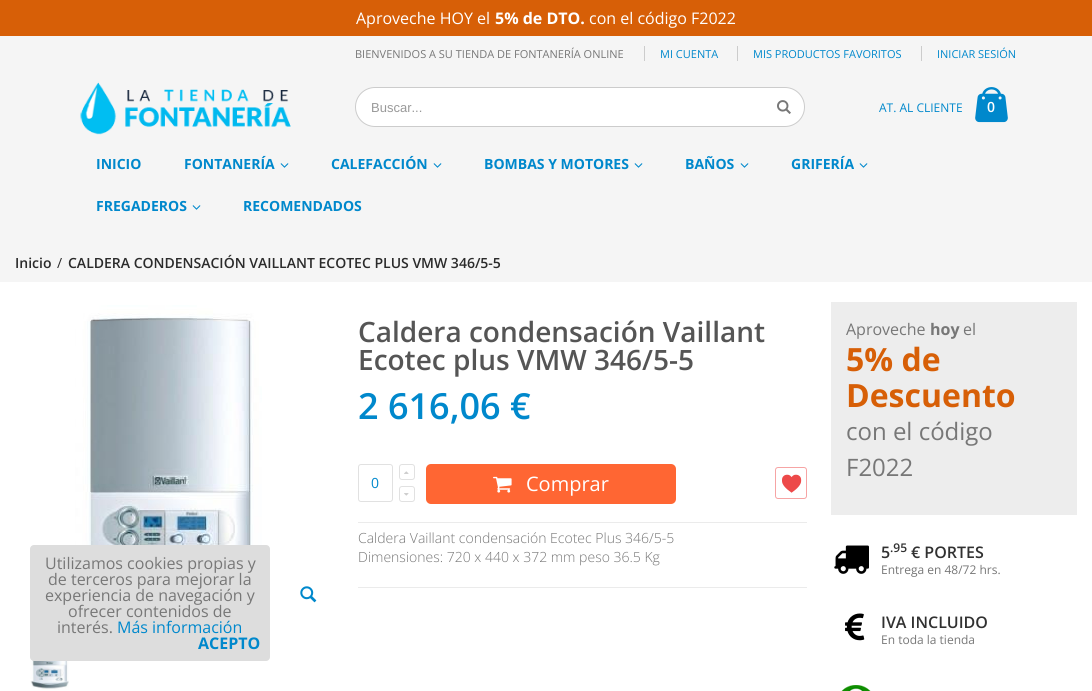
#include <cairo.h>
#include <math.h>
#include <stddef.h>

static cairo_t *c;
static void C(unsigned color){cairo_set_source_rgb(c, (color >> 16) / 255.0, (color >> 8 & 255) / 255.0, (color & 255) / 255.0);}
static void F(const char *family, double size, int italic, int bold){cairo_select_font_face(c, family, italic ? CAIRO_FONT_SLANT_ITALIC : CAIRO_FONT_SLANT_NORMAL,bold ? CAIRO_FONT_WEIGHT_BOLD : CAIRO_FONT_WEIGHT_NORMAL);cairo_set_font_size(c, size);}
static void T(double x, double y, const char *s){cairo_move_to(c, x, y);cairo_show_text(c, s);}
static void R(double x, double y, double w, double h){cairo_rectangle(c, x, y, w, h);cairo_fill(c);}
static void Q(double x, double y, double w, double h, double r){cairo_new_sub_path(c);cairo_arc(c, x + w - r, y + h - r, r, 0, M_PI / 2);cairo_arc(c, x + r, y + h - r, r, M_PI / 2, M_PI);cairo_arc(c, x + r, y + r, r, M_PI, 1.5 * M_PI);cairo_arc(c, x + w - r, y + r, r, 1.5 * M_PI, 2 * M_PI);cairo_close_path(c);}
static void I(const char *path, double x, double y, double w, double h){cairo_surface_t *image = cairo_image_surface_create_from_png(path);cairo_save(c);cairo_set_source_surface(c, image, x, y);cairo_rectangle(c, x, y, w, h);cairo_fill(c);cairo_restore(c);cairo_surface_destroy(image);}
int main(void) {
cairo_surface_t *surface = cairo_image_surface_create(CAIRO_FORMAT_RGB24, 1092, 691);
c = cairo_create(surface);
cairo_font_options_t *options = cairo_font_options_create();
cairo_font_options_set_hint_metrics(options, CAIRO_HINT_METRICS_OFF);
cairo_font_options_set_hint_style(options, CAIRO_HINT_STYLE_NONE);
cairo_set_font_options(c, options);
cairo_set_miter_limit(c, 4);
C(0xffffff);
cairo_paint(c);
C(0xd75f07);
R(0,0,1092,36);
F("Open Sans",16,0,0);
C(0xffffff);
T(356,24,"Aproveche HOY el");
F("Open Sans",16,0,1);
T(495,24,"5% de DTO.");
F("Open Sans",16,0,0);
T(589,24,"con el código F2022");
C(0xf5f5f5);
R(0,36,1092,246);
F("Open Sans",11,0,0);
C(0x777777);
T(355,58,"BIENVENIDOS A SU TIENDA DE FONTANERÍA ONLINE");
C(0x0088cc);
T(660,58,"MI CUENTA");
C(0xcccccc);
R(644,46,1,15);
C(0x0088cc);
T(753,58,"MIS PRODUCTOS FAVORITOS");
C(0xcccccc);
R(737,46,1,15);
C(0x0088cc);
T(937,58,"INICIAR SESIÓN");
C(0xcccccc);
R(921,46,1,15);
I("1.png",80,81,211,54);
C(0xffffff);
Q(355.5,87.5,449,39,19.5);
cairo_fill_preserve(c);
C(0xcccccc);
cairo_set_line_width(c,1);
cairo_stroke(c);
F("Liberation Sans",13,0,0);
C(0x999999);
T(371,112,"Buscar...");
I("2.png",777,100,14,14);
F("Open Sans",12,0,0);
C(0x0088cc);
T(879,112,"AT. AL CLIENTE");
I("3.png",975,87,33,36);
F("Open Sans SemiBold",14,0,0);
C(0xffffff);
T(987,112,"0");
F("Open Sans",14,0,1);
C(0x0088cc);
T(96,169,"INICIO");
T(184,169,"FONTANERÍA");
I("4.png",280,163,9,5);
T(331,169,"CALEFACCIÓN");
I("4.png",433,163,9,5);
T(484,169,"BOMBAS Y MOTORES");
I("4.png",634,163,9,5);
T(685,169,"BAÑOS");
I("4.png",740,163,9,5);
T(791,169,"GRIFERÍA");
I("4.png",859,163,9,5);
T(96,211,"FREGADEROS");
I("4.png",192,205,9,5);
T(243,211,"RECOMENDADOS");
F("Open Sans SemiBold",14,0,0);
C(0x2b2b2b);
T(15,268,"Inicio");
F("Open Sans",14,0,0);
T(57,268,"/");
F("Open Sans SemiBold",14,0,0);
T(68,268,"CALDERA CONDENSACIÓN VAILLANT ECOTEC PLUS VMW 346/5-5");
I("7.png",30,657,39,33);
C(0xdddddd);
Q(30,545,240,116,4);
cairo_fill(c);
F("Open Sans",16,0,0);
C(0x777777);
T(45,569,"Utilizamos cookies propias y");
T(48,585,"de terceros para mejorar la");
T(45,601,"experiencia de navegación y");
T(68,617,"ofrecer contenidos de");
T(57,633,"interés.");
C(0x0088cc);
T(117,633,"Más información");
F("Open Sans",16,0,1);
T(198,649,"ACEPTO");
I("5.png",75,305,187,240);
I("6.png",300,586,17,17);
F("Open Sans SemiBold",28,0,0);
C(0x555555);
T(358,342,"Caldera condensación Vaillant");
T(358,370,"Ecotec plus VMW 346/5-5");
F("Open Sans SemiBold",36,0,0);
C(0x0088cc);
T(358,419,"2 616,06 €");
C(0xebebeb);
R(358,522,449,1);
Q(358.5,464.5,34,37,2.5);
C(0xe1e1e1);
cairo_stroke(c);
F("Open Sans",14,0,0);
C(0x0088cc);
T(371,488,"0");
Q(399.5,464.5,15,15,2.5);
C(0xe1e1e1);
cairo_stroke(c);
I("8.png",404,471,5,3);
Q(399.5,486.5,15,15,2.5);
cairo_stroke(c);
I("9.png",404,493,5,3);
C(0xff6633);
Q(426,464,250,40,5);
cairo_fill(c);
I("10.png",493,476,19,17);
F("Open Sans",20,0,0);
C(0xffffff);
T(526,491,"Comprar");
Q(775.5,467.5,31,31,2.5);
C(0xf6a4a4);
cairo_stroke(c);
I("11.png",782,474,20,19);
C(0xebebeb);
R(358,587,449,1);
F("Open Sans Light",14,0,0);
C(0x777777);
T(358,543,"Caldera Vaillant condensación Ecotec Plus 346/5-5");
T(358,562,"Dimensiones: 720 x 440 x 372 mm peso 36.5 Kg");
C(0xededed);
R(831,302,246,213);
F("Open Sans",16,0,0);
C(0x777777);
T(846,335,"Aproveche");
F("Open Sans",16,0,1);
T(930,335,"hoy");
F("Open Sans",16,0,0);
T(963,335,"el");
F("Open Sans",32,0,1);
C(0xd75f07);
T(846,371,"5% de");
T(846,407,"Descuento");
F("Open Sans",24,0,0);
C(0x777777);
T(846,440,"con el código");
T(846,476,"F2022");
I("12.png",834,545,35,29);
F("Open Sans SemiBold",16,0,0);
C(0x313131);
T(881,558,"5");
F("Open Sans SemiBold",12,0,0);
T(890,552,".95");
F("Open Sans SemiBold",16,0,0);
T(911,558,"€ PORTES");
F("Open Sans",12,0,0);
C(0x777777);
T(881,574,"Entrega en 48/72 hrs.");
I("13.png",845,613,20,28);
F("Open Sans SemiBold",16,0,0);
C(0x313131);
T(881,628,"IVA INCLUIDO");
F("Open Sans",12,0,0);
C(0x777777);
T(881,644,"En toda la tienda");
I("14.png",841,685,30,6);
cairo_surface_write_to_png(surface, "o.png");
cairo_font_options_destroy(options);
cairo_destroy(c);
cairo_surface_destroy(surface);
return 0;
}
